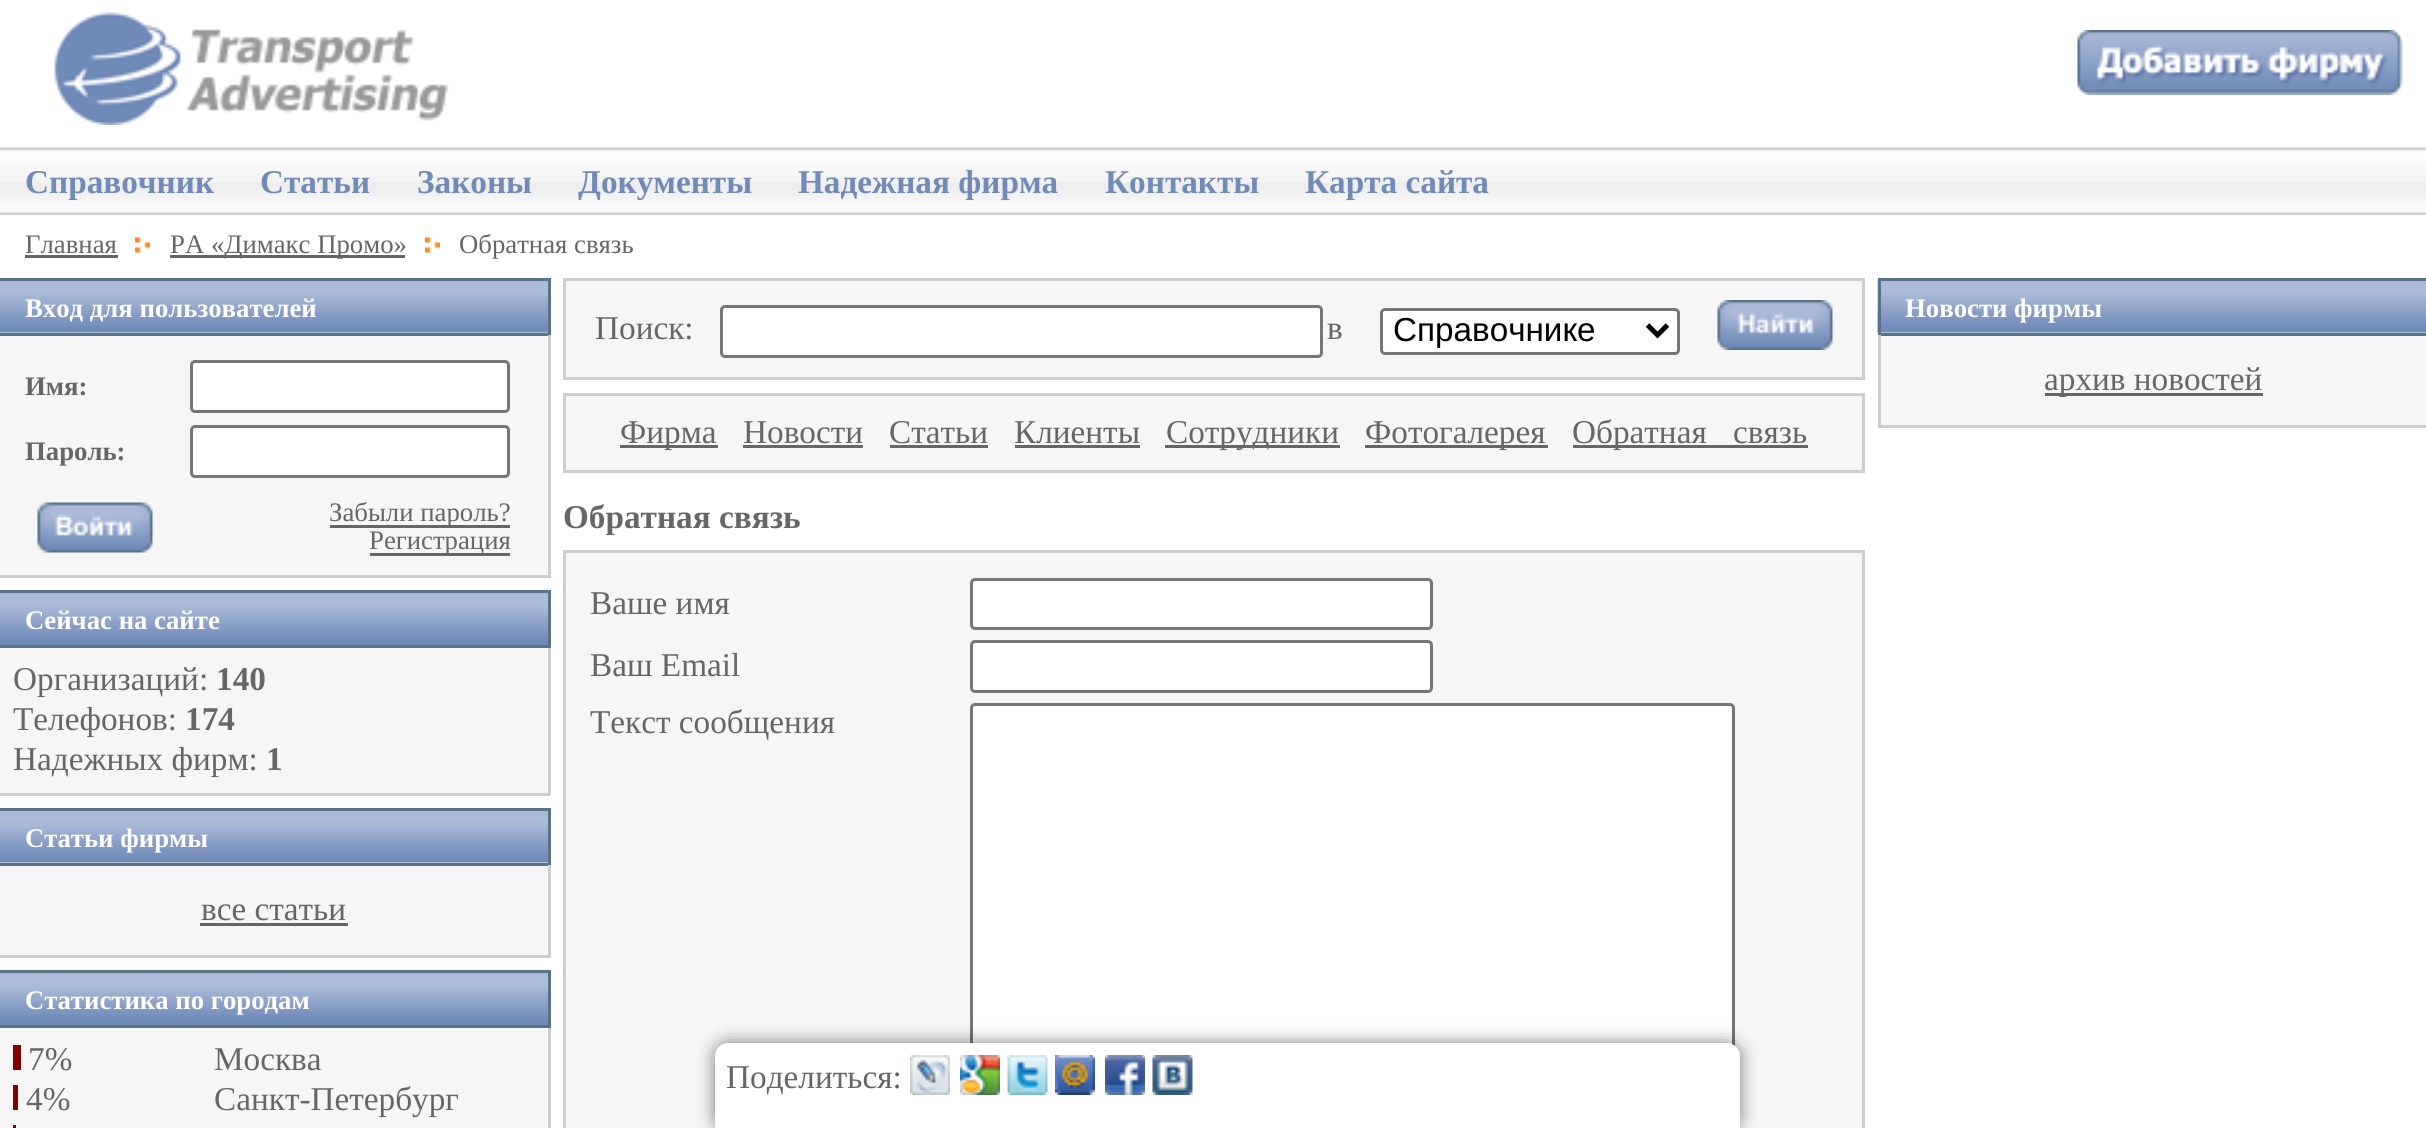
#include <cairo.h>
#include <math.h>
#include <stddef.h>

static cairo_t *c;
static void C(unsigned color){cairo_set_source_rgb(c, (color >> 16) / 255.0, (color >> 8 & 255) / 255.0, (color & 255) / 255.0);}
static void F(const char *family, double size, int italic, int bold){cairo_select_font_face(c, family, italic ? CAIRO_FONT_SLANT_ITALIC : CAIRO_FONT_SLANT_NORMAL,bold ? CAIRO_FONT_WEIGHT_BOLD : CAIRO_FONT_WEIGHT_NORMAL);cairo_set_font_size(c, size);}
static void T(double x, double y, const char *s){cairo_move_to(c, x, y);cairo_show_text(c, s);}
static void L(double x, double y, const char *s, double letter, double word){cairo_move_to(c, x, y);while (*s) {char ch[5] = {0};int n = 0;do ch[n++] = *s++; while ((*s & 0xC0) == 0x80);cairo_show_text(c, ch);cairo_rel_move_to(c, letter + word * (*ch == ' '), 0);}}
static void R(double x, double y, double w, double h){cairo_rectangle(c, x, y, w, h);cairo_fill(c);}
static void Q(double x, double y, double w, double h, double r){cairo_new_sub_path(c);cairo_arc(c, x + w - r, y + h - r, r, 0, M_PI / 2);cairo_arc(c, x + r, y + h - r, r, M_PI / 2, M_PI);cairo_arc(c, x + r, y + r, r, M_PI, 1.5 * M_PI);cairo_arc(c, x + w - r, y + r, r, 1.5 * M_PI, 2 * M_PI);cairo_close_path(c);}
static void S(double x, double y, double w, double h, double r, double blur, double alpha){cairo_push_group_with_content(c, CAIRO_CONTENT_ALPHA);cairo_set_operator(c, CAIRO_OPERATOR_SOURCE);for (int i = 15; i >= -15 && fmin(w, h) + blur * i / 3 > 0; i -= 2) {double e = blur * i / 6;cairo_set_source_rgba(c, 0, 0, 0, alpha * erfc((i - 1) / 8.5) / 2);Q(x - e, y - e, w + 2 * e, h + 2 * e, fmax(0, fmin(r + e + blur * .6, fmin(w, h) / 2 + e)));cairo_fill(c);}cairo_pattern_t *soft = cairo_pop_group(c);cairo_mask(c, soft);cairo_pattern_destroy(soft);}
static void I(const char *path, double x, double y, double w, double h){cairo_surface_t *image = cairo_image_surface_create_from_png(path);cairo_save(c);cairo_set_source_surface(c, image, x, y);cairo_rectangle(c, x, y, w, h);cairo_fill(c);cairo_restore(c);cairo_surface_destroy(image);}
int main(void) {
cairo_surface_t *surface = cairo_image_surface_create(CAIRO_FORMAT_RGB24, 2426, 1128);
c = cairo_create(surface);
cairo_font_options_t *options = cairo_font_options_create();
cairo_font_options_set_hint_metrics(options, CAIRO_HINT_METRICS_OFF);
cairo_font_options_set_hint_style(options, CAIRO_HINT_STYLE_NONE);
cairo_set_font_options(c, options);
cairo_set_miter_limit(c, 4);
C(0xffffff);
cairo_paint(c);
I("1.png",54,12,395,113);
I("2.png",2077,30,326,65);
I("3.png",0,147,2426,68);
F("Liberation Serif",33.25,0,1);
C(0x718bb9);
T(25,193,"Справочник");
T(260,193,"Статьи");
T(417,193,"Законы");
T(578,193,"Документы");
T(798,193,"Надежная фирма");
T(1105,193,"Контакты");
T(1305,193,"Карта сайта");
F("Liberation Serif",26.75,0,0);
C(0x666666);
T(25,253,"Главная");
R(25,255,93,3);
I("4.png",135,237,15,16);
R(170,255,235,3);
T(170,253,"РА «Димакс Промо»");
I("4.png",425,237,15,16);
T(459,253,"Обратная связь");
C(0xf6f6f6);
R(0,332,548,243);
I("5.png",0,281,548,52);
C(0x57738c);
R(0,278,550,3);
R(548,278,3,57);
R(0,333,550,3);
F("Liberation Serif",26.75,0,1);
C(0xffffff);
T(25,317,"Вход для пользователей");
C(0xcecece);
R(548,335,3,243);
R(0,575,550,3);
C(0x666666);
T(25,395,"Имя:");
C(0xffffff);
Q(191.5,361.5,317,50,3.5);
cairo_fill_preserve(c);
C(0x767676);
cairo_set_line_width(c,3);
cairo_stroke(c);
C(0x666666);
T(25,460,"Пароль:");
C(0xffffff);
Q(191.5,426.5,317,50,3.5);
cairo_fill_preserve(c);
C(0x767676);
cairo_stroke(c);
I("6.png",37,502,116,51);
C(0x666666);
R(330,525,180,3);
F("Liberation Serif",26.75,0,0);
T(329,521,"Забыли пароль?");
R(370,553,140,3);
T(369,549,"Регистрация");
C(0xf6f6f6);
R(0,648,548,145);
I("7.png",0,593,548,52);
C(0x57738c);
R(0,590,550,3);
R(548,590,3,58);
R(0,645,550,3);
F("Liberation Serif",26.75,0,1);
C(0xffffff);
T(25,629,"Сейчас на сайте");
C(0xcecece);
R(548,648,3,147);
R(0,793,550,3);
F("Liberation Serif",33.25,0,0);
C(0x666666);
T(13,690,"Организаций:");
F("Liberation Serif",33.25,0,1);
T(216,690,"140");
F("Liberation Serif",33.25,0,0);
T(13,730,"Телефонов:");
F("Liberation Serif",33.25,0,1);
T(185,730,"174");
F("Liberation Serif",33.25,0,0);
T(13,770,"Надежных фирм:");
F("Liberation Serif",33.25,0,1);
T(266,770,"1");
C(0xf6f6f6);
R(0,862,548,93);
I("5.png",0,811,548,52);
C(0x57738c);
R(0,808,550,3);
R(548,808,3,57);
R(0,863,550,3);
F("Liberation Serif",26.75,0,1);
C(0xffffff);
T(25,847,"Статьи фирмы");
C(0xcecece);
R(548,865,3,93);
R(0,955,550,3);
F("Liberation Serif",33.25,0,0);
C(0x666666);
T(201,920,"все статьи");
R(200,923,148,3);
C(0xf6f6f6);
R(0,1028,548,100);
I("7.png",0,973,548,52);
C(0x57738c);
R(0,970,550,3);
R(548,970,3,58);
R(0,1025,550,3);
F("Liberation Serif",26.75,0,1);
C(0xffffff);
T(25,1009,"Статистика по городам");
C(0xcecece);
R(548,1028,3,100);
C(0x800000);
R(13,1045,8,25);
F("Liberation Serif",33.25,0,0);
C(0x666666);
T(28,1070,"7%");
T(214,1070,"Москва");
C(0x800000);
R(13,1085,5,25);
C(0x666666);
T(26,1110,"4%");
T(214,1110,"Санкт-Петербург");
C(0x800000);
R(13,1125,3,3);
C(0xf6f6f6);
cairo_rectangle(c,564.5,279.5,1299,99);
cairo_fill_preserve(c);
C(0xcecece);
cairo_stroke(c);
C(0x666666);
T(595,339,"Поиск:");
C(0xffffff);
Q(721.5,306.5,600,50,3.5);
cairo_fill_preserve(c);
C(0x767676);
cairo_stroke(c);
C(0x666666);
T(1327,339,"в");
C(0xffffff);
Q(1381.5,309.5,297,44,3.5);
cairo_fill_preserve(c);
C(0x767676);
cairo_stroke(c);
cairo_new_path(c);
cairo_move_to(c,1647.5,325);
cairo_line_to(c,1657.5,335);
cairo_line_to(c,1667.5,325);
C(0x000000);
cairo_set_line_width(c,5);
cairo_stroke(c);
F("Liberation Sans",33.25,0,0);
T(1393,341,"Справочнике");
I("8.png",1717,300,116,50);
C(0xf6f6f6);
cairo_rectangle(c,564.5,394.5,1299,77);
cairo_fill_preserve(c);
C(0xcecece);
cairo_set_line_width(c,3);
cairo_stroke(c);
C(0x666666);
R(620,445,98,3);
F("Liberation Serif",33.25,0,0);
T(620,443,"Фирма");
T(743,443,"Новости");
R(743,445,120,3);
T(889,443,"Статьи");
R(890,445,98,3);
T(1014,443,"Клиенты");
R(1015,445,125,3);
R(1165,445,175,3);
T(1166,443,"Сотрудники");
R(1365,445,183,3);
T(1365,443,"Фотогалерея");
R(1573,445,235,3);
L(1572,443,"Обратная связь",0,18);
F("Liberation Serif",33.25,0,1);
T(563,528,"Обратная связь");
C(0xf6f6f6);
cairo_rectangle(c,564.5,551.5,1299,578);
cairo_fill_preserve(c);
C(0xcecece);
cairo_stroke(c);
F("Liberation Serif",33.25,0,0);
C(0x666666);
T(590,614,"Ваше имя");
C(0xffffff);
Q(971.5,579.5,460,49,3.5);
cairo_fill_preserve(c);
C(0x767676);
cairo_stroke(c);
C(0x666666);
T(590,676,"Ваш Email");
C(0xffffff);
Q(971.5,641.5,460,50,3.5);
cairo_fill_preserve(c);
C(0x767676);
cairo_stroke(c);
C(0x666666);
T(590,733,"Текст сообщения");
C(0xffffff);
Q(971.5,704.5,762,387,3.5);
cairo_fill_preserve(c);
C(0x767676);
cairo_stroke(c);
C(0xf6f6f6);
R(1881,332,545,93);
I("9.png",1877,280,549,53);
C(0x57738c);
R(1878,278,548,3);
R(1878,333,548,3);
R(1878,278,3,57);
F("Liberation Serif",26.75,0,1);
C(0xffffff);
T(1905,317,"Новости фирмы");
C(0xcecece);
R(1878,425,548,3);
R(1878,335,3,93);
C(0x666666);
R(2045,393,218,3);
F("Liberation Serif",33.25,0,0);
T(2044,390,"архив новостей");
C(0x000000);
S(715,1043,1025,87,13,9,.5);
C(0xffffff);
cairo_new_path(c);
cairo_move_to(c,728,1043);
cairo_line_to(c,1727,1043);
cairo_curve_to(c,1734,1043,1740,1049,1740,1056);
cairo_line_to(c,1740,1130);
cairo_line_to(c,715,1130);
cairo_line_to(c,715,1056);
cairo_curve_to(c,715,1049,721,1043,728,1043);
cairo_close_path(c);
cairo_fill(c);
C(0x666666);
T(726,1088,"Поделиться:");
I("10.png",910,1055,40,40);
I("11.png",960,1055,40,40);
I("12.png",1007,1055,41,40);
I("13.png",1055,1055,40,40);
I("14.png",1105,1055,40,40);
I("15.png",1152,1055,41,40);
cairo_surface_write_to_png(surface, "o.png");
cairo_font_options_destroy(options);
cairo_destroy(c);
cairo_surface_destroy(surface);
return 0;
}
